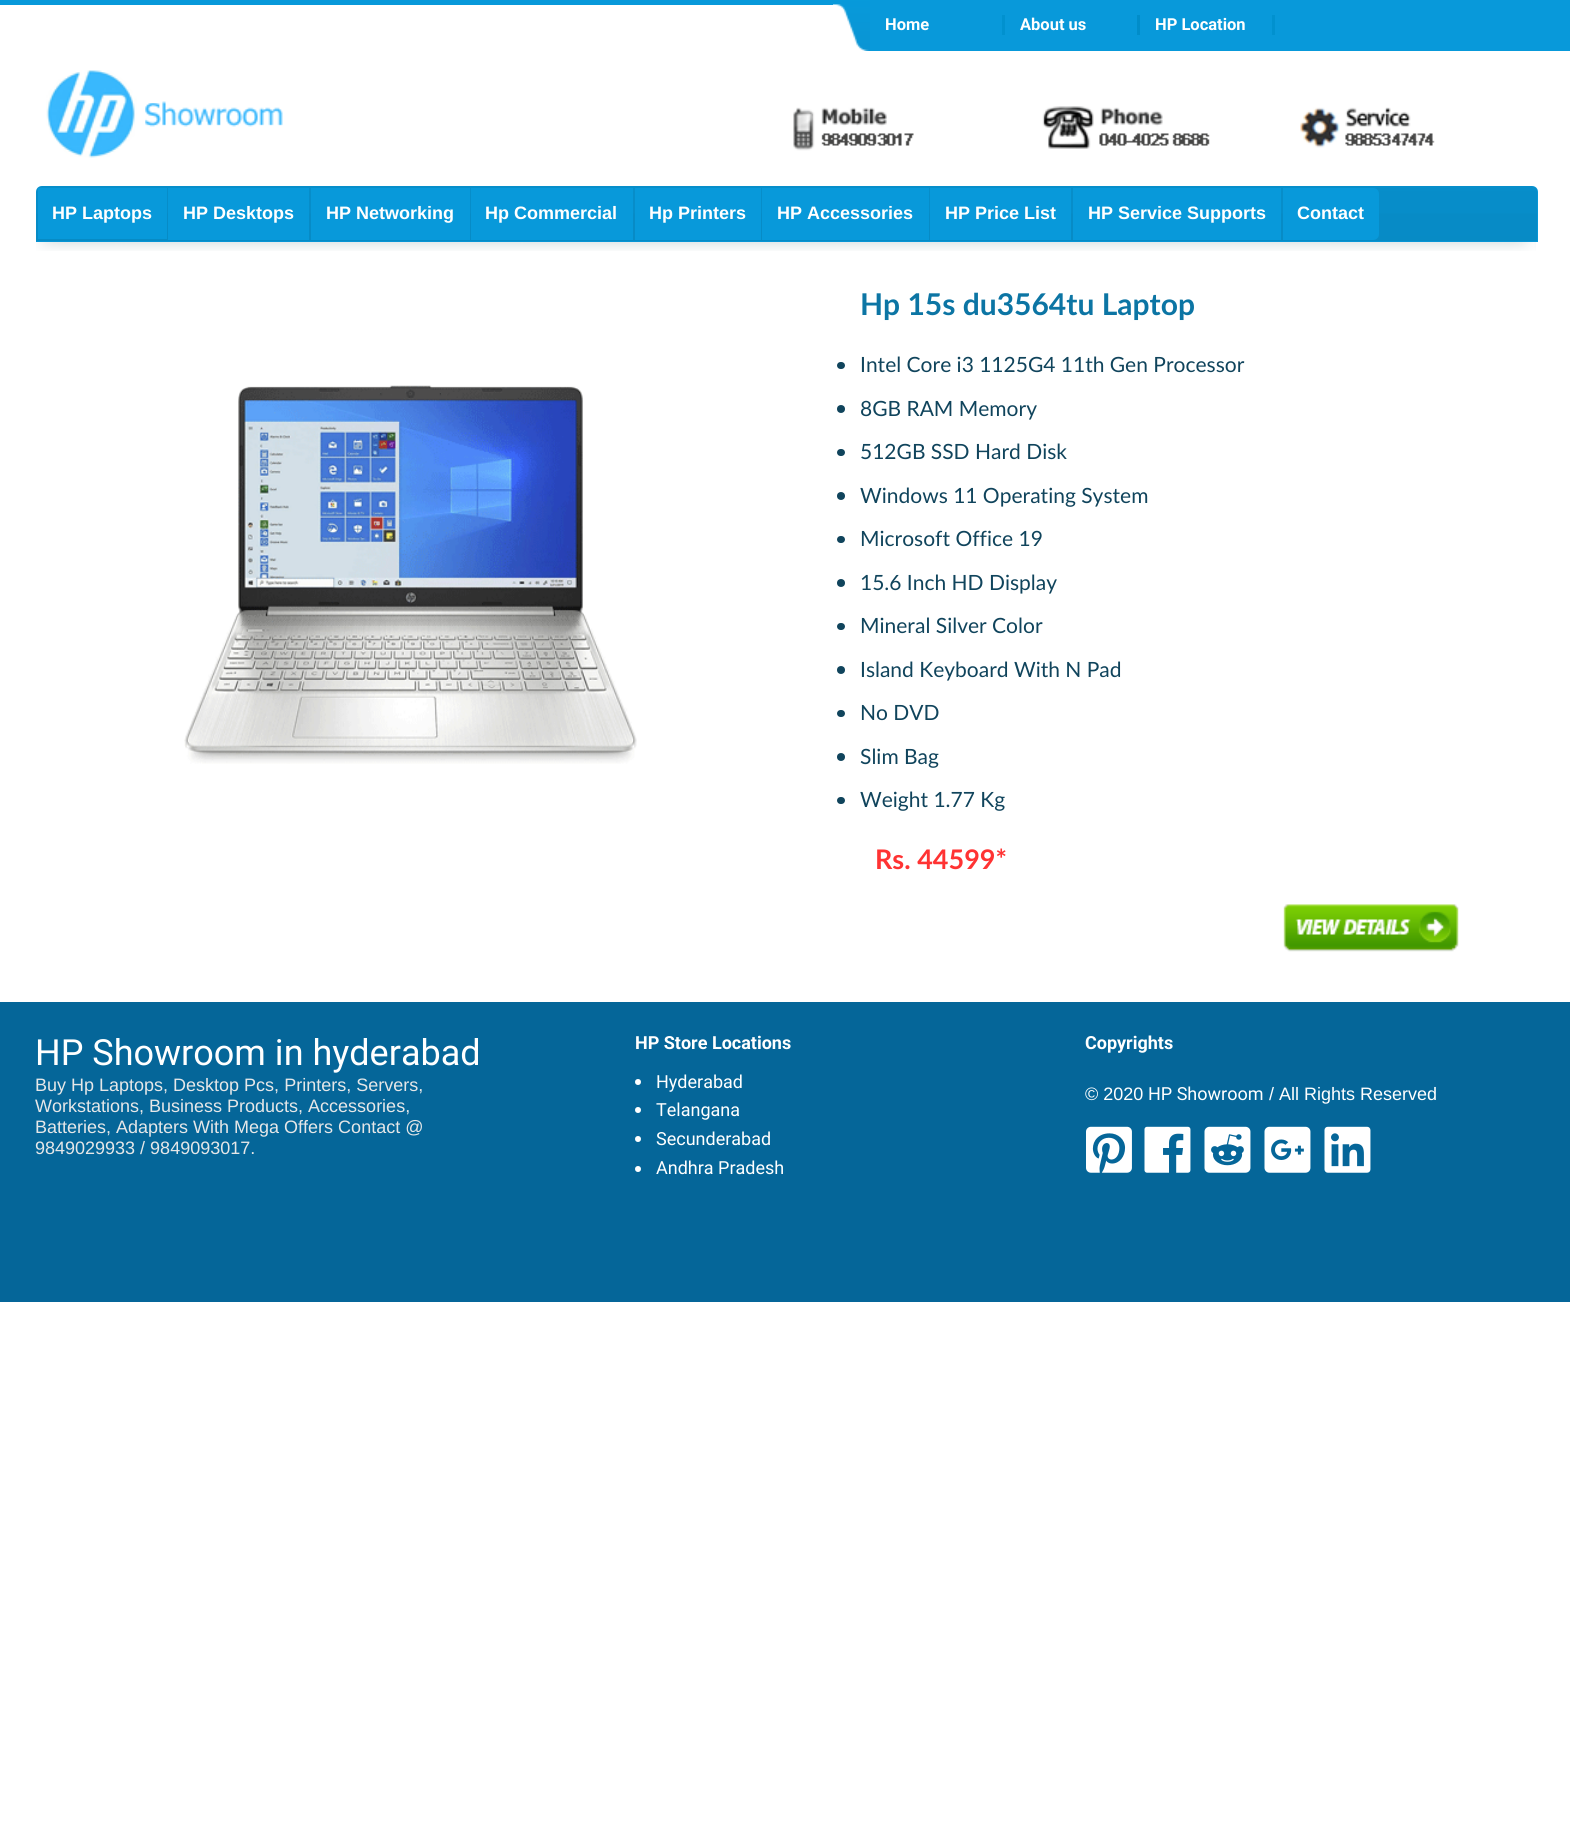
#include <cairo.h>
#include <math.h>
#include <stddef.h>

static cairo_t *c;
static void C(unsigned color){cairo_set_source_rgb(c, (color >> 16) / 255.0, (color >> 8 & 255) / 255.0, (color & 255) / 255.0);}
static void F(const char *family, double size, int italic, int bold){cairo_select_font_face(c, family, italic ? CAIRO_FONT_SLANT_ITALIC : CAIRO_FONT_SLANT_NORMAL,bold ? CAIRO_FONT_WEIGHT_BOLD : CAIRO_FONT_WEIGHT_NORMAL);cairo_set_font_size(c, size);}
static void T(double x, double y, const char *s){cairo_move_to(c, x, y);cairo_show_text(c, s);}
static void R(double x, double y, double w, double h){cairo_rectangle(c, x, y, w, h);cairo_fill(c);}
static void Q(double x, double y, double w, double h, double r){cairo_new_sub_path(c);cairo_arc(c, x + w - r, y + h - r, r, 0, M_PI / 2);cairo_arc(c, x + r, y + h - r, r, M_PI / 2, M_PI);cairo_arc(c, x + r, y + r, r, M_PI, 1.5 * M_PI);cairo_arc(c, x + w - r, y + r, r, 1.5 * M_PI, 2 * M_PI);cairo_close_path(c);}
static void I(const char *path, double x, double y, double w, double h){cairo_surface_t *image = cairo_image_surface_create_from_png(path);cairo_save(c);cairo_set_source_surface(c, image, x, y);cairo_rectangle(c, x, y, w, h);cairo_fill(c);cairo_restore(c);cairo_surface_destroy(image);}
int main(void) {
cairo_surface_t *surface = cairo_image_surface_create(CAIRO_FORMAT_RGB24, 1570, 1843);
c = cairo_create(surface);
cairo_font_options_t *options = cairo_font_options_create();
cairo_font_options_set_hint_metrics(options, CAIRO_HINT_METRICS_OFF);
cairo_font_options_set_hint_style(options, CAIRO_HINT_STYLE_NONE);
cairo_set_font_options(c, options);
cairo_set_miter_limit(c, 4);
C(0xffffff);
cairo_paint(c);
C(0x0899da);
R(0,0,833,5);
R(870,0,700,51);
I("1.png",833,0,37,51);
C(0x0191cf);
R(1002,15,3,20);
F("Roboto",16.5,0,1);
C(0xffffff);
T(885,30,"Home");
C(0x018dc9);
R(1137,15,3,20);
C(0xffffff);
T(1020,30,"About us");
C(0x0191cf);
R(1272,15,3,20);
C(0xffffff);
T(1155,30,"HP Location");
I("2.png",46,70,237,88);
I("3.png",793,106,642,45);
C(0x0899da);
cairo_new_path(c);
cairo_move_to(c,42,186);
cairo_line_to(c,1532,186);
cairo_curve_to(c,1535.5,186,1538,188.5,1538,192);
cairo_line_to(c,1538,242);
cairo_line_to(c,36,242);
cairo_line_to(c,36,192);
cairo_curve_to(c,36,188.5,38.5,186,42,186);
cairo_close_path(c);
cairo_fill(c);
I("4.png",36,186,1502,56);
R(38,188,129,51);
F("Liberation Sans",18,0,1);
C(0xffffff);
T(52,219,"HP Laptops");
C(0x0899da);
R(168,188,141,52);
C(0xffffff);
T(183,219,"HP Desktops");
C(0x0899da);
R(311,188,159,52);
C(0xffffff);
T(326,219,"HP Networking");
C(0x0899da);
R(471,188,162,52);
C(0xffffff);
T(485,219,"Hp Commercial");
C(0x0899da);
R(635,188,126,52);
C(0xffffff);
T(649,219,"Hp Printers");
C(0x0899da);
R(762,188,167,52);
C(0xffffff);
T(777,219,"HP Accessories");
C(0x0899da);
R(930,188,141,52);
C(0xffffff);
T(945,219,"HP Price List");
C(0x0899da);
R(1073,188,208,52);
C(0xffffff);
T(1088,219,"HP Service Supports");
C(0x0899da);
cairo_new_path(c);
cairo_move_to(c,1283,188);
cairo_line_to(c,1373,188);
cairo_curve_to(c,1376.5,188,1379,190.5,1379,194);
cairo_line_to(c,1379,234);
cairo_curve_to(c,1379,237.5,1376.5,240,1373,240);
cairo_line_to(c,1283,240);
cairo_close_path(c);
cairo_fill(c);
C(0xffffff);
T(1297,219,"Contact");
I("5.png",36,242,1500,9);
I("6.png",184,385,453,379);
F("Lato",30,0,1);
C(0x0c75a4);
T(860,315,"Hp 15s du3564tu Laptop");
C(0x10445c);
Q(837,362,8,7,3.5);
cairo_fill(c);
F("Lato",21,0,0);
T(860,372,"Intel Core i3 1125G4 11th Gen Processor");
cairo_new_path(c);
cairo_arc(c,841,409,4,0,2 * M_PI);
cairo_fill(c);
T(860,416,"8GB RAM Memory");
Q(837,449,8,7,3.5);
cairo_fill(c);
T(860,459,"512GB SSD Hard Disk");
cairo_new_path(c);
cairo_arc(c,841,496,4,0,2 * M_PI);
cairo_fill(c);
T(860,503,"Windows 11 Operating System");
Q(837,536,8,7,3.5);
cairo_fill(c);
T(860,546,"Microsoft Office 19");
cairo_new_path(c);
cairo_arc(c,841,583,4,0,2 * M_PI);
cairo_fill(c);
T(860,590,"15.6 Inch HD Display");
Q(837,623,8,7,3.5);
cairo_fill(c);
T(860,633,"Mineral Silver Color");
cairo_new_path(c);
cairo_arc(c,841,670,4,0,2 * M_PI);
cairo_fill(c);
T(860,677,"Island Keyboard With N Pad");
Q(837,710,8,7,3.5);
cairo_fill(c);
T(860,720,"No DVD");
cairo_new_path(c);
cairo_arc(c,841,757,4,0,2 * M_PI);
cairo_fill(c);
T(860,764,"Slim Bag");
Q(837,797,8,7,3.5);
cairo_fill(c);
T(860,807,"Weight 1.77 Kg");
F("Lato",27,0,1);
C(0xff3333);
T(875,869,"Rs. 44599*");
I("7.png",1283,904,176,48);
C(0x056699);
R(0,1002,1570,300);
F("Roboto",36,0,0);
C(0xffffff);
T(35,1065,"HP Showroom in hyderabad");
F("Liberation Sans",18,0,0);
C(0xe6e7e8);
T(35,1091,"Buy Hp Laptops, Desktop Pcs, Printers, Servers,");
T(35,1112,"Workstations, Business Products, Accessories,");
T(35,1133,"Batteries, Adapters With Mega Offers Contact @");
T(35,1154,"9849029933 / 9849093017.");
F("Roboto",18,0,1);
C(0xffffff);
T(635,1049,"HP Store Locations");
cairo_new_path(c);
cairo_arc(c,638,1082,3,0,2 * M_PI);
cairo_fill(c);
F("Roboto",18,0,0);
T(656,1088,"Hyderabad");
cairo_new_path(c);
cairo_arc(c,638,1110,3,0,2 * M_PI);
cairo_fill(c);
T(656,1116,"Telangana");
cairo_new_path(c);
cairo_arc(c,638,1139,3,0,2 * M_PI);
cairo_fill(c);
T(656,1145,"Secunderabad");
cairo_new_path(c);
cairo_arc(c,638,1169,3,0,2 * M_PI);
cairo_fill(c);
T(656,1174,"Andhra Pradesh");
F("Roboto",18,0,1);
T(1085,1049,"Copyrights");
F("Liberation Sans",18,0,0);
T(1085,1100,"© 2020");
F("Roboto",18,0,0);
T(1148,1100,"HP Showroom");
F("Liberation Sans",18,0,0);
T(1269,1100,"/ All Rights Reserved");
I("8.png",1086,1126,46,47);
I("9.png",1144,1126,47,47);
I("10.png",1204,1126,47,47);
I("11.png",1264,1126,47,47);
I("12.png",1324,1126,47,47);
cairo_surface_write_to_png(surface, "o.png");
cairo_font_options_destroy(options);
cairo_destroy(c);
cairo_surface_destroy(surface);
return 0;
}
